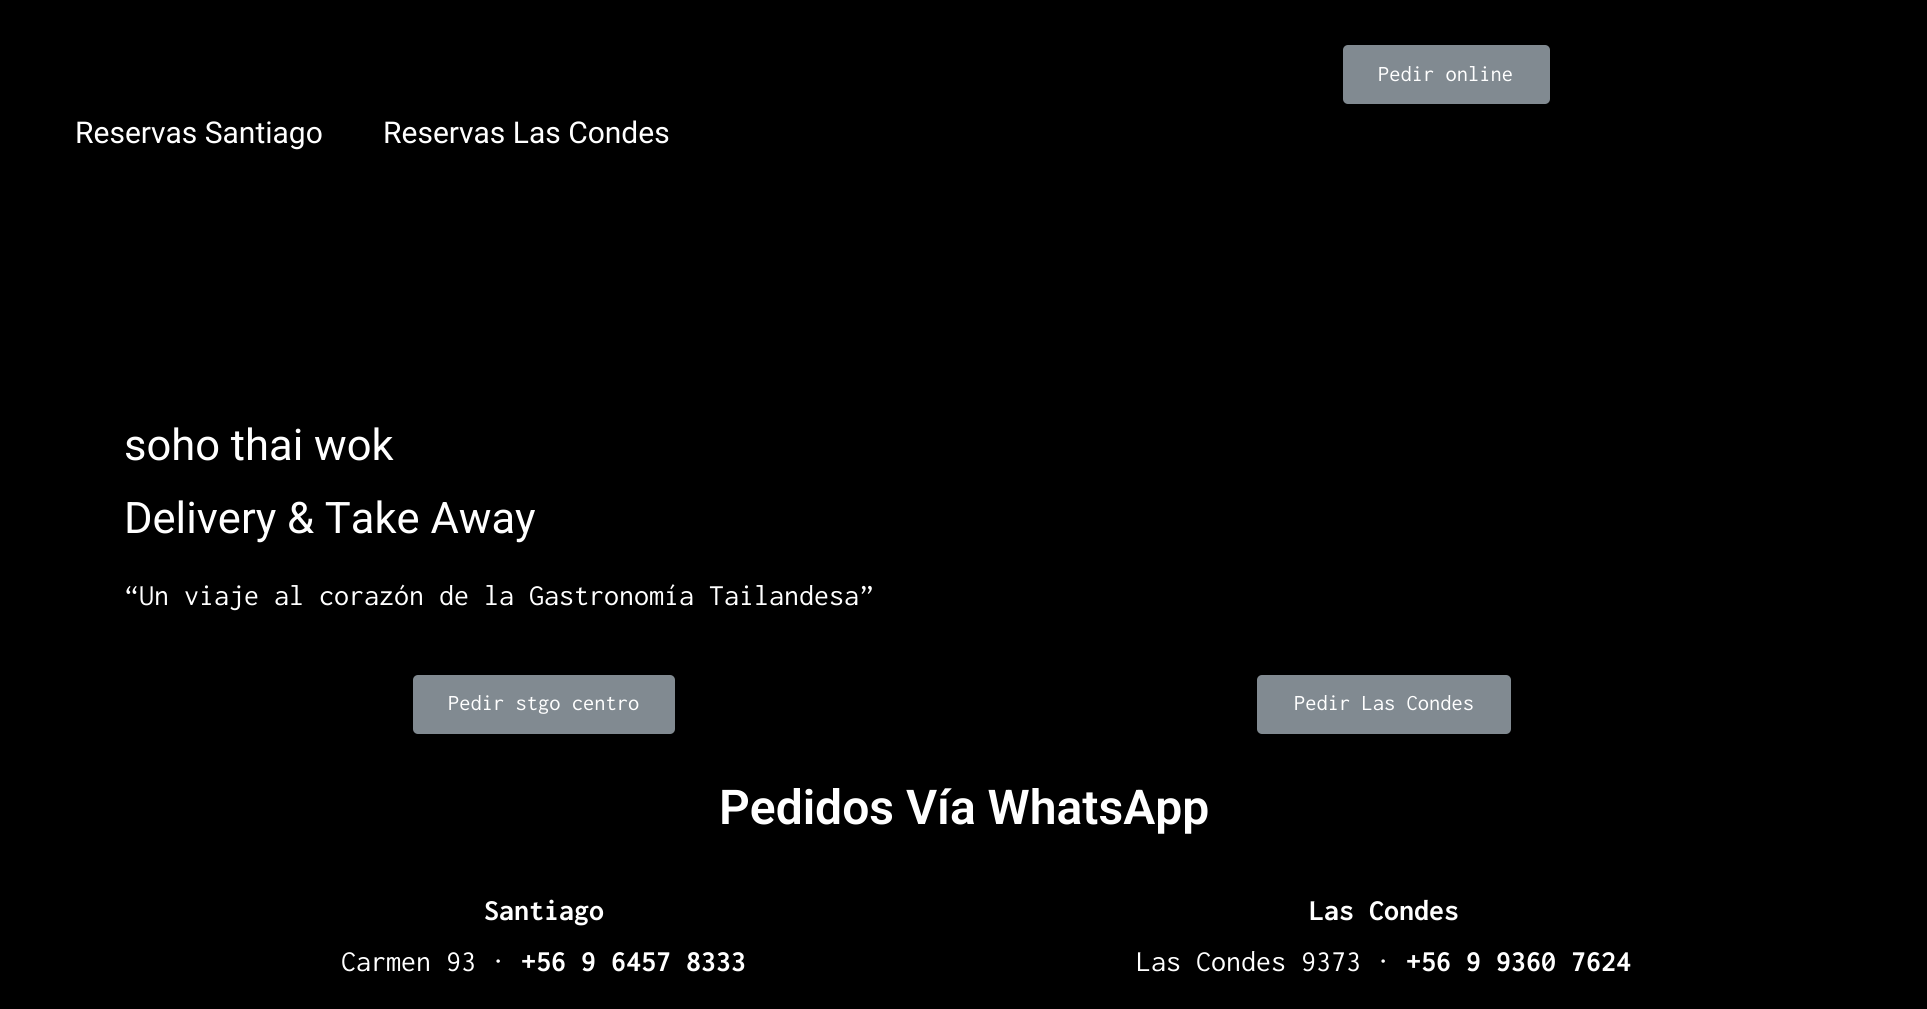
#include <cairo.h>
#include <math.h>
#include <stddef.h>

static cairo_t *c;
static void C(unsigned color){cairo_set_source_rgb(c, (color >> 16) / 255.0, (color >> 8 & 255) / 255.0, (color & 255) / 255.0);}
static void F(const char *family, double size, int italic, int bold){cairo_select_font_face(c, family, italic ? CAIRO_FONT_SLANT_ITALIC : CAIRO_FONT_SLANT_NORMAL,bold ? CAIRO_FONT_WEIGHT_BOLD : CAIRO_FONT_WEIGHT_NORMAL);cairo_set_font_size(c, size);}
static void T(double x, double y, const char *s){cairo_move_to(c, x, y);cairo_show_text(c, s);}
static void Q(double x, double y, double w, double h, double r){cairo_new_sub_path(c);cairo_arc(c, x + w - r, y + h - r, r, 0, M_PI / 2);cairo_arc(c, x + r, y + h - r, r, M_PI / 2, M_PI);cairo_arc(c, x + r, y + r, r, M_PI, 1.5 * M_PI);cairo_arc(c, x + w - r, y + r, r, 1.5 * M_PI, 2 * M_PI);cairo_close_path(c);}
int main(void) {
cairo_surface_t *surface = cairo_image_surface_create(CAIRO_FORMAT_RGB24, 1927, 1009);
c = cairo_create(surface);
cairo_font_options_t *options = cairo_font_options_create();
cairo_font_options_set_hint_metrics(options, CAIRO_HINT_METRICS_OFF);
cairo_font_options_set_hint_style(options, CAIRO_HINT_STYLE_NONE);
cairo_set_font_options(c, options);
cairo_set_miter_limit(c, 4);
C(0x000000);
cairo_paint(c);
C(0x818a91);
Q(1343,45,207,59,5);
cairo_fill(c);
F("Inconsolata",22.5,0,0);
C(0xffffff);
T(1378,81,"Pedir online");
F("Roboto",30,0,0);
T(75,143,"Reservas Santiago");
T(383,143,"Reservas Las Condes");
F("Roboto",43.5,0,0);
T(124,460,"soho thai wok");
T(124,533,"Delivery & Take Away");
F("Inconsolata",30,0,0);
T(124,605,"“Un viaje al corazón de la Gastronomía Tailandesa”");
C(0x818a91);
Q(413,675,262,59,5);
cairo_fill(c);
F("Inconsolata",22.5,0,0);
C(0xffffff);
T(448,710,"Pedir stgo centro");
C(0x818a91);
Q(1257,675,254,59,5);
cairo_fill(c);
C(0xffffff);
T(1294,710,"Pedir Las Condes");
F("Roboto SemiBold",48,0,0);
T(719,824,"Pedidos Vía WhatsApp");
F("Inconsolata",30,0,1);
T(484,920,"Santiago");
F("Inconsolata",30,0,0);
T(341,971,"Carmen 93 ·");
F("Inconsolata",30,0,1);
T(521,971,"+56 9 6457 8333");
T(1309,920,"Las Condes");
F("Inconsolata",30,0,0);
T(1136,971,"Las Condes 9373 ·");
F("Inconsolata",30,0,1);
T(1406,971,"+56 9 9360 7624");
cairo_surface_write_to_png(surface, "o.png");
cairo_font_options_destroy(options);
cairo_destroy(c);
cairo_surface_destroy(surface);
return 0;
}
